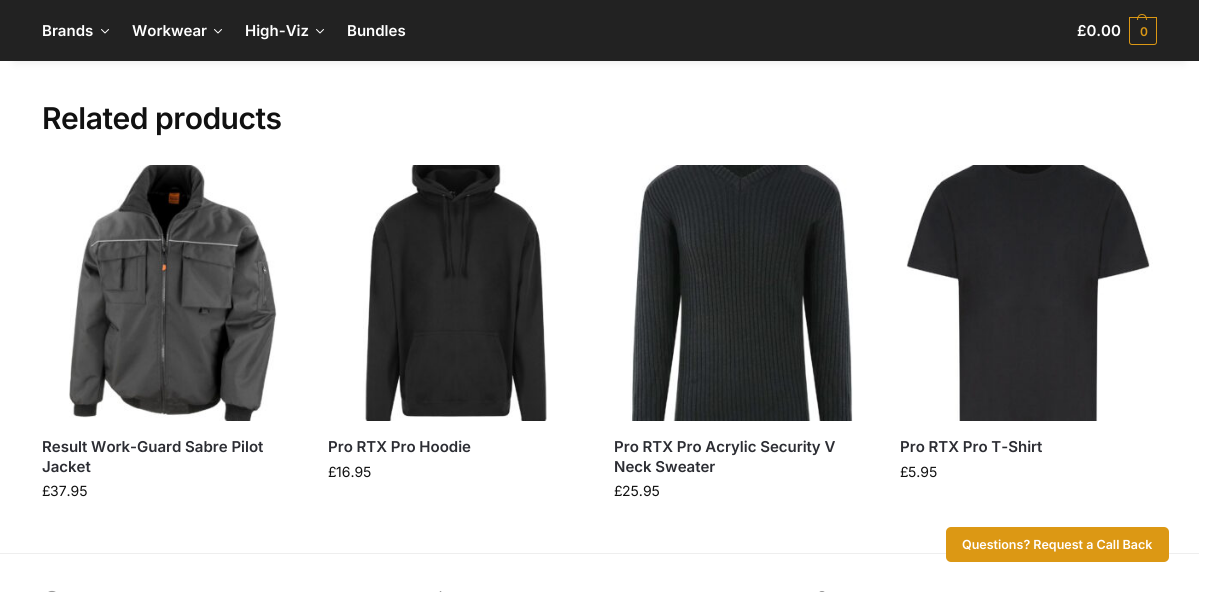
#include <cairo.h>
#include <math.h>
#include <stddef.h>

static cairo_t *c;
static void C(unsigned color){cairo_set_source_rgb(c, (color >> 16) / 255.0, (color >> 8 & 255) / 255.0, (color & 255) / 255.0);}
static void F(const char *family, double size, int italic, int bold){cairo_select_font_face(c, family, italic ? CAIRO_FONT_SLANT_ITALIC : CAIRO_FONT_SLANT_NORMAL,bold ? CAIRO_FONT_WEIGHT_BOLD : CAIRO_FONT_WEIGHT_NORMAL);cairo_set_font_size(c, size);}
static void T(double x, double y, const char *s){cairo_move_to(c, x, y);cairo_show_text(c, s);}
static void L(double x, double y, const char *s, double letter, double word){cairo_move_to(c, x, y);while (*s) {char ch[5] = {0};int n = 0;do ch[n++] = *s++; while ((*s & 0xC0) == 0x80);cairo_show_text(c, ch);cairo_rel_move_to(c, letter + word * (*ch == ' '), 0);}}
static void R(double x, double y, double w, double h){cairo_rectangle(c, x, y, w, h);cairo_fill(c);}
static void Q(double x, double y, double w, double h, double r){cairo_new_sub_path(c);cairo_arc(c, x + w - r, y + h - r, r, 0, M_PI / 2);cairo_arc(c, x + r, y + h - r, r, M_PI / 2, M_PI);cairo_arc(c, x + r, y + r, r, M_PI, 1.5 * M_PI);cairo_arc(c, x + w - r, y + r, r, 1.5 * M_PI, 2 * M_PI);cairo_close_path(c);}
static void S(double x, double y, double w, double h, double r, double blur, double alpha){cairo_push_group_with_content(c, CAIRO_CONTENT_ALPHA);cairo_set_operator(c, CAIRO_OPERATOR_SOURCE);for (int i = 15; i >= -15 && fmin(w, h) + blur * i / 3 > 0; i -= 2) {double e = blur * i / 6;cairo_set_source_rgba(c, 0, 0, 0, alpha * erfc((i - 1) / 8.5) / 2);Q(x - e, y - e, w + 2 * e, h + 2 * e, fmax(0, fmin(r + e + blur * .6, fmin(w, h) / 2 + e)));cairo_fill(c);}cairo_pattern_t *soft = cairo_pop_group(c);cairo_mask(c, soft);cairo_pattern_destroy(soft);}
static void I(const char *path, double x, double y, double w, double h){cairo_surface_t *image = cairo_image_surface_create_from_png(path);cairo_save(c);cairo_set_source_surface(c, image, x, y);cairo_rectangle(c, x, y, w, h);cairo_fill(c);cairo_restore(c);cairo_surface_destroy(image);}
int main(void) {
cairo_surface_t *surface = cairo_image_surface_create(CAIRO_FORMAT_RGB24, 1214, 592);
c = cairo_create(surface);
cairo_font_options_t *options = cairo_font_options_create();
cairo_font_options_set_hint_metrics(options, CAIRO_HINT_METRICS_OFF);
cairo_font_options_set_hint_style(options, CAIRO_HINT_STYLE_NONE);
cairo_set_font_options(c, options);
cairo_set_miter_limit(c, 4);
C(0xffffff);
cairo_paint(c);
C(0x000000);
S(15,30,1169,31,0,5,.1);
C(0x222222);
R(0,0,1199,61);
F("Inter SemiBold",15,0,0);
C(0xffffff);
T(42,36,"Brands");
cairo_new_path(c);
cairo_move_to(c,108.5,29.5);
cairo_line_to(c,105,33);
cairo_line_to(c,101.5,29.5);
cairo_set_line_width(c,1);
cairo_set_line_cap(c,CAIRO_LINE_CAP_ROUND);
cairo_set_line_join(c,CAIRO_LINE_JOIN_ROUND);
cairo_stroke(c);
T(132,36,"Workwear");
cairo_new_path(c);
cairo_move_to(c,221.5,29.5);
cairo_line_to(c,218,33);
cairo_line_to(c,214.5,29.5);
cairo_stroke(c);
T(245,36,"High-Viz");
cairo_new_path(c);
cairo_move_to(c,323.5,29.5);
cairo_line_to(c,320,33);
cairo_line_to(c,316.5,29.5);
cairo_stroke(c);
T(347,36,"Bundles");
T(1077,36,"£0.00");
cairo_new_path(c);
cairo_move_to(c,1129.5,17.5);
cairo_line_to(c,1156.5,17.5);
cairo_line_to(c,1156.5,42);
cairo_curve_to(c,1156.5,43.5,1155.5,44.5,1154,44.5);
cairo_line_to(c,1132,44.5);
cairo_curve_to(c,1130.5,44.5,1129.5,43.5,1129.5,42);
cairo_close_path(c);
C(0xdc9814);
cairo_set_line_cap(c,CAIRO_LINE_CAP_BUTT);
cairo_set_line_join(c,CAIRO_LINE_JOIN_MITER);
cairo_stroke(c);
cairo_set_fill_rule(c,CAIRO_FILL_RULE_EVEN_ODD);
cairo_new_path(c);
cairo_move_to(c,1142,14);
cairo_curve_to(c,1145.5,14,1147,17,1147,20);
cairo_line_to(c,1137,20);
cairo_curve_to(c,1137,17,1138.5,14,1142,14);
cairo_close_path(c);
cairo_move_to(c,1142,15);
cairo_curve_to(c,1145,15,1146,17.5,1146,20);
cairo_line_to(c,1138,20);
cairo_curve_to(c,1138,17.5,1139,15,1142,15);
cairo_close_path(c);
cairo_fill(c);
F("Inter SemiBold",12,0,0);
L(1140,36,"0",-1,0);
F("Inter SemiBold",30,0,0);
C(0x111111);
L(42,129,"Related products",-.5,0);
I("1.png",69,165,208,256);
F("Inter SemiBold",15,0,0);
C(0x2c2d33);
T(42,452,"Result Work-Guard Sabre Pilot");
T(42,472,"Jacket");
F("Inter",14,0,0);
C(0x111111);
T(42,496,"£");
T(50,496,"37.95");
I("2.png",363,165,184,256);
F("Inter SemiBold",15,0,0);
C(0x2c2d33);
T(328,452,"Pro RTX Pro Hoodie");
F("Inter",14,0,0);
C(0x111111);
T(328,477,"£");
T(336,477,"16.95");
I("3.png",630,165,223,256);
F("Inter SemiBold",15,0,0);
C(0x2c2d33);
T(614,452,"Pro RTX Pro Acrylic Security V");
T(614,472,"Neck Sweater");
F("Inter",14,0,0);
C(0x111111);
T(614,496,"£");
T(622,496,"25.95");
I("4.png",906,165,247,256);
F("Inter SemiBold",15,0,0);
C(0x2c2d33);
T(900,452,"Pro RTX Pro T-Shirt");
F("Inter",14,0,0);
C(0x111111);
T(900,477,"£");
T(908,477,"5.95");
C(0xeeeeee);
R(0,553,1199,1);
C(0xdc9814);
Q(946,527,223,35,5);
cairo_fill(c);
F("Inter SemiBold",12.5,0,0);
C(0xffffff);
T(962,549,"Questions? Request a Call Back");
I("5.png",48,590,8,2);
I("6.png",439,591,3,1);
I("7.png",819,591,6,1);
cairo_surface_write_to_png(surface, "o.png");
cairo_font_options_destroy(options);
cairo_destroy(c);
cairo_surface_destroy(surface);
return 0;
}
